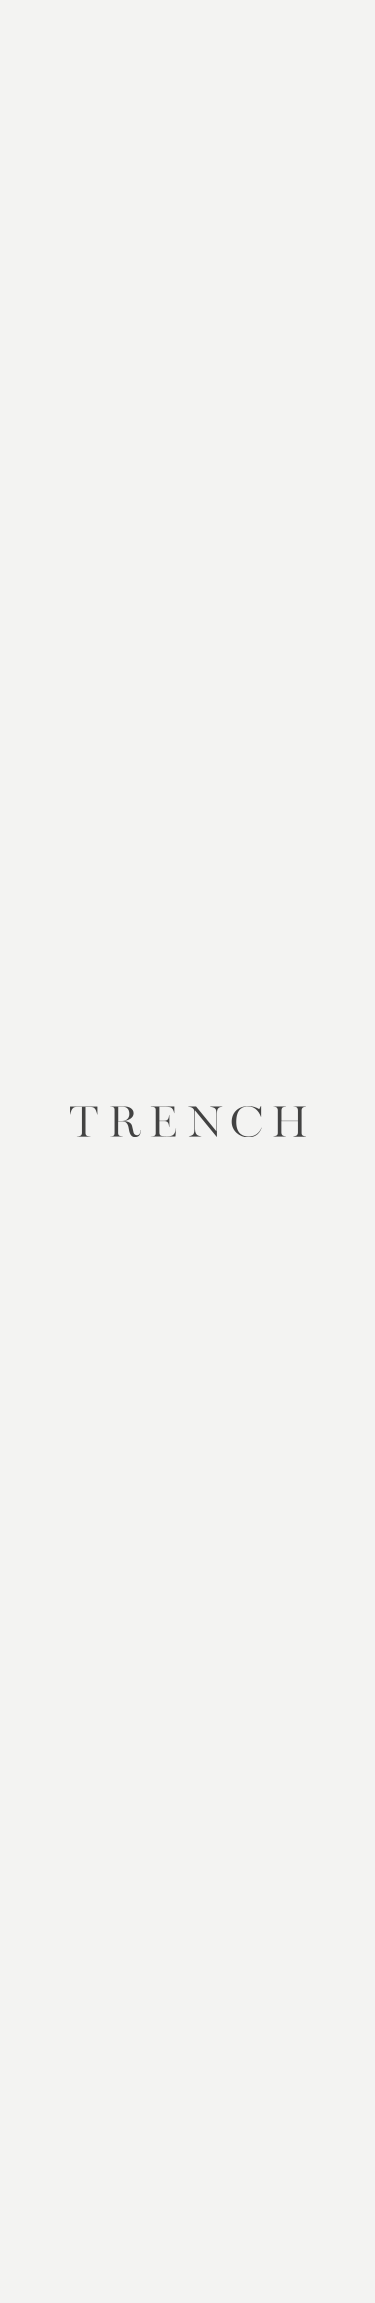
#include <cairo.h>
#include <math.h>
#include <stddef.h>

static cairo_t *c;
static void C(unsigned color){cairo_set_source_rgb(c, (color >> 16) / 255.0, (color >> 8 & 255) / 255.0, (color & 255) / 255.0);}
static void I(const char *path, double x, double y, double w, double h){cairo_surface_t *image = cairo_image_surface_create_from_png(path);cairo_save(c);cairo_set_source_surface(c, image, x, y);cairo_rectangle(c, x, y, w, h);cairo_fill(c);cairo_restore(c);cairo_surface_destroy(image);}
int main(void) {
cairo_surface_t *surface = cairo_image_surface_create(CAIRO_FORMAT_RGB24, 375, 2303);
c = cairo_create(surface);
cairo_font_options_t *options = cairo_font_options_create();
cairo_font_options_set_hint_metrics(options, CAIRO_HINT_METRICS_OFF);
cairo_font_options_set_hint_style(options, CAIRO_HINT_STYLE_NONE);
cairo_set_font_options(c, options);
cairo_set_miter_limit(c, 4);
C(0xf3f3f2);
cairo_paint(c);
I("1.png",70,1106,236,31);
cairo_surface_write_to_png(surface, "o.png");
cairo_font_options_destroy(options);
cairo_destroy(c);
cairo_surface_destroy(surface);
return 0;
}
